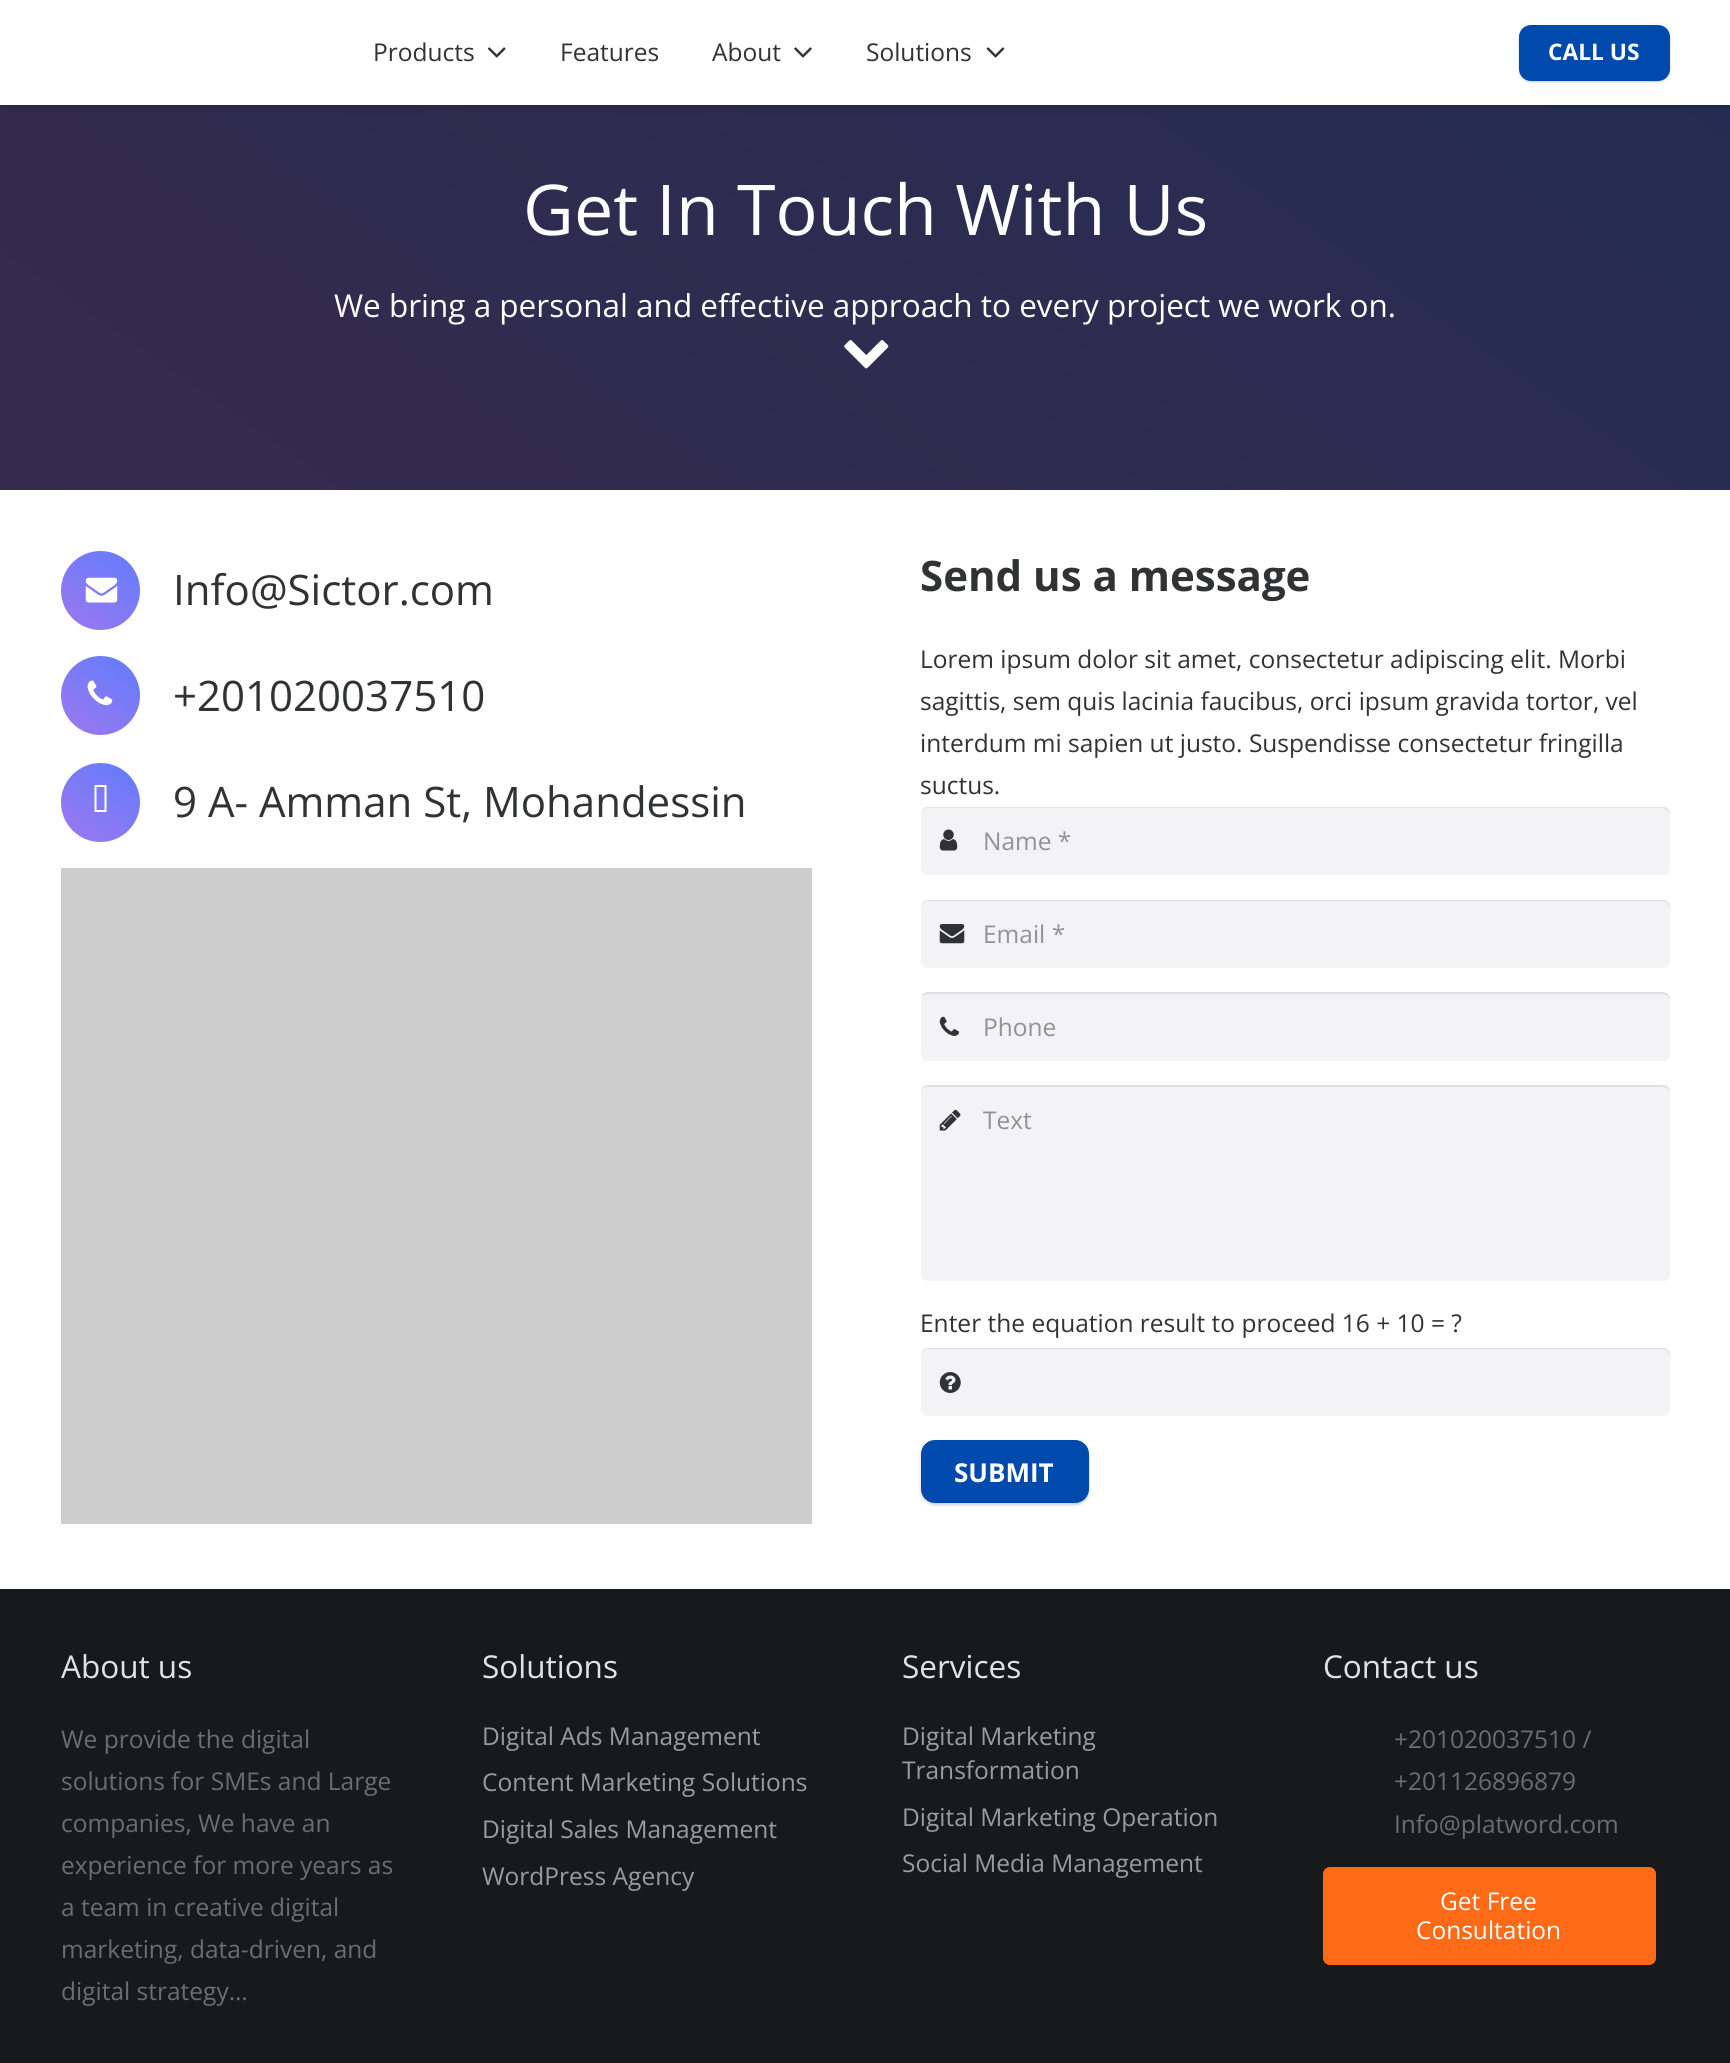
#include <cairo.h>
#include <math.h>
#include <stddef.h>

static cairo_t *c;
static void C(unsigned color){cairo_set_source_rgb(c, (color >> 16) / 255.0, (color >> 8 & 255) / 255.0, (color & 255) / 255.0);}
static void F(const char *family, double size, int italic, int bold){cairo_select_font_face(c, family, italic ? CAIRO_FONT_SLANT_ITALIC : CAIRO_FONT_SLANT_NORMAL,bold ? CAIRO_FONT_WEIGHT_BOLD : CAIRO_FONT_WEIGHT_NORMAL);cairo_set_font_size(c, size);}
static void T(double x, double y, const char *s){cairo_move_to(c, x, y);cairo_show_text(c, s);}
static void R(double x, double y, double w, double h){cairo_rectangle(c, x, y, w, h);cairo_fill(c);}
static void Q(double x, double y, double w, double h, double r){cairo_new_sub_path(c);cairo_arc(c, x + w - r, y + h - r, r, 0, M_PI / 2);cairo_arc(c, x + r, y + h - r, r, M_PI / 2, M_PI);cairo_arc(c, x + r, y + r, r, M_PI, 1.5 * M_PI);cairo_arc(c, x + w - r, y + r, r, 1.5 * M_PI, 2 * M_PI);cairo_close_path(c);}
static void S(double x, double y, double w, double h, double r, double blur, double alpha){cairo_push_group_with_content(c, CAIRO_CONTENT_ALPHA);cairo_set_operator(c, CAIRO_OPERATOR_SOURCE);for (int i = 15; i >= -15 && fmin(w, h) + blur * i / 3 > 0; i -= 2) {double e = blur * i / 6;cairo_set_source_rgba(c, 0, 0, 0, alpha * erfc((i - 1) / 8.5) / 2);Q(x - e, y - e, w + 2 * e, h + 2 * e, fmax(0, fmin(r + e + blur * .6, fmin(w, h) / 2 + e)));cairo_fill(c);}cairo_pattern_t *soft = cairo_pop_group(c);cairo_mask(c, soft);cairo_pattern_destroy(soft);}
static void I(const char *path, double x, double y, double w, double h){cairo_surface_t *image = cairo_image_surface_create_from_png(path);cairo_save(c);cairo_set_source_surface(c, image, x, y);cairo_rectangle(c, x, y, w, h);cairo_fill(c);cairo_restore(c);cairo_surface_destroy(image);}
int main(void) {
cairo_surface_t *surface = cairo_image_surface_create(CAIRO_FORMAT_RGB24, 1730, 2063);
c = cairo_create(surface);
cairo_font_options_t *options = cairo_font_options_create();
cairo_font_options_set_hint_metrics(options, CAIRO_HINT_METRICS_OFF);
cairo_font_options_set_hint_style(options, CAIRO_HINT_STYLE_NONE);
cairo_set_font_options(c, options);
cairo_set_miter_limit(c, 4);
cairo_pattern_t *gradient;
C(0xffffff);
cairo_paint(c);
gradient = cairo_pattern_create_linear(1265,-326,466,816);
cairo_pattern_add_color_stop_rgba(gradient,0,0.141,0.173,0.325,1);
cairo_pattern_add_color_stop_rgba(gradient,1,0.212,0.169,0.306,1);
cairo_set_source(c,gradient);
cairo_pattern_destroy(gradient);
R(0,105,1730,385);
C(0x000000);
S(2,5,1727,102,0,1,.05);
S(2,7,1727,102,0,4.5,.1);
C(0xffffff);
R(0,1,1730,104);
F("Open Sans",24.5,0,0);
C(0x313233);
T(373,61,"Products");
I("1.png",487,47,19,11);
T(560,61,"Features");
T(712,61,"About");
I("2.png",794,47,18,11);
T(866,61,"Solutions");
I("3.png",986,47,19,11);
C(0x000000);
S(1519,26,151,56,12,1,.2);
C(0x004aad);
Q(1519,25,151,56,12);
cairo_fill(c);
F("Open Sans",22.75,0,1);
C(0xffffff);
T(1548,60,"CALL US");
F("Open Sans",70,0,0);
T(523,235,"Get In Touch With Us");
F("Open Sans",31.5,0,0);
T(334,317,"We bring a personal and effective approach to every project we work on.");
I("4.png",844,340,45,29);
gradient = cairo_pattern_create_linear(132,546,69,636);
cairo_pattern_add_color_stop_rgba(gradient,0,0.376,0.486,0.992,1);
cairo_pattern_add_color_stop_rgba(gradient,1,0.62,0.471,0.933,1);
cairo_set_source(c,gradient);
cairo_pattern_destroy(gradient);
cairo_arc(c,100.5,590.5,39.5,0,2 * M_PI);
cairo_fill(c);
I("5.png",85,577,33,26);
F("Open Sans",42,0,0);
C(0x313233);
T(173,605,"Info@Sictor.com");
gradient = cairo_pattern_create_linear(132,651,69,741);
cairo_pattern_add_color_stop_rgba(gradient,0,0.376,0.486,0.992,1);
cairo_pattern_add_color_stop_rgba(gradient,1,0.62,0.471,0.933,1);
cairo_set_source(c,gradient);
cairo_pattern_destroy(gradient);
cairo_new_path(c);
cairo_arc(c,100.5,695.5,39.5,0,2 * M_PI);
cairo_fill(c);
I("6.png",87,680,26,26);
C(0x313233);
T(173,711,"+201020037510");
gradient = cairo_pattern_create_linear(132,757,69,847);
cairo_pattern_add_color_stop_rgba(gradient,0,0.376,0.486,0.992,1);
cairo_pattern_add_color_stop_rgba(gradient,1,0.62,0.471,0.933,1);
cairo_set_source(c,gradient);
cairo_pattern_destroy(gradient);
cairo_new_path(c);
cairo_arc(c,100.5,802.5,39.5,0,2 * M_PI);
cairo_fill(c);
C(0xffffff);
cairo_new_path(c);
cairo_move_to(c,96.5,810);
cairo_line_to(c,96.5,787);
cairo_line_to(c,104.5,787);
cairo_line_to(c,104.5,810);
cairo_close_path(c);
cairo_move_to(c,94.5,812);
cairo_line_to(c,106.5,812);
cairo_line_to(c,106.5,785);
cairo_line_to(c,94.5,785);
cairo_close_path(c);
cairo_fill(c);
C(0x313233);
T(173,817,"9 A- Amman St, Mohandessin");
C(0xcdcdcd);
R(61,868,751,656);
F("Open Sans",42,0,1);
C(0x313233);
T(920,591,"Send us a message");
F("Open Sans",24.5,0,0);
T(920,668,"Lorem ipsum dolor sit amet, consectetur adipiscing elit. Morbi");
T(920,710,"sagittis, sem quis lacinia faucibus, orci ipsum gravida tortor, vel");
T(920,752,"interdum mi sapien ut justo. Suspendisse consectetur fringilla");
T(920,794,"suctus.");
C(0xf3f2f5);
Q(921,807,749,68,7);
cairo_fill(c);
I("7.png",939,829,19,22);
cairo_set_source_rgba(c,0,0,0,0.08);
cairo_new_path(c);
cairo_move_to(c,928,808);
cairo_line_to(c,1662,808);
cairo_curve_to(c,1666,808,1670,812,1670,816);
cairo_line_to(c,1670,814);
cairo_curve_to(c,1670,810,1667,807,1663,807);
cairo_line_to(c,928,807);
cairo_curve_to(c,925,807,922,809,921,812);
cairo_curve_to(c,923,810,925,808,928,808);
cairo_close_path(c);
cairo_fill(c);
C(0x929294);
T(983,850,"Name *");
C(0xf3f2f5);
Q(921,900,749,68,7);
cairo_fill(c);
I("8.png",939,924,26,20);
cairo_set_source_rgba(c,0,0,0,0.08);
cairo_new_path(c);
cairo_move_to(c,928,901);
cairo_line_to(c,1662,901);
cairo_curve_to(c,1666,901,1670,905,1670,909);
cairo_line_to(c,1670,907);
cairo_curve_to(c,1670,903,1667,900,1663,900);
cairo_line_to(c,928,900);
cairo_curve_to(c,925,900,922,902,921,905);
cairo_curve_to(c,923,903,925,901,928,901);
cairo_close_path(c);
cairo_fill(c);
C(0x929294);
T(983,943,"Email *");
C(0xf3f2f5);
Q(921,992,749,69,7);
cairo_fill(c);
I("9.png",939,1016,20,20);
cairo_set_source_rgba(c,0,0,0,0.08);
cairo_new_path(c);
cairo_move_to(c,928,994);
cairo_line_to(c,1662,994);
cairo_curve_to(c,1666,994,1670,997,1670,1001);
cairo_line_to(c,1670,999);
cairo_curve_to(c,1670,995,1667,992,1663,992);
cairo_line_to(c,928,992);
cairo_curve_to(c,925,992,922,994,921,997);
cairo_curve_to(c,923,995,925,994,928,994);
cairo_close_path(c);
cairo_fill(c);
C(0x929294);
T(983,1036,"Phone");
C(0xf3f2f5);
Q(921,1085,749,196,7);
cairo_fill(c);
I("10.png",939,1109,22,22);
cairo_set_source_rgba(c,0,0,0,0.08);
cairo_new_path(c);
cairo_move_to(c,928,1087);
cairo_line_to(c,1662,1087);
cairo_curve_to(c,1666,1087,1670,1090,1670,1094);
cairo_line_to(c,1670,1092);
cairo_curve_to(c,1670,1088,1667,1085,1663,1085);
cairo_line_to(c,928,1085);
cairo_curve_to(c,925,1085,922,1087,921,1090);
cairo_curve_to(c,923,1088,925,1087,928,1087);
cairo_close_path(c);
cairo_fill(c);
C(0x929294);
T(983,1129,"Text");
C(0x313233);
T(920,1332,"Enter the equation result to proceed 16 + 10 = ?");
C(0xf3f2f5);
Q(921,1348,749,68,7);
cairo_fill(c);
cairo_set_source_rgba(c,0,0,0,0.08);
cairo_new_path(c);
cairo_move_to(c,928,1349);
cairo_line_to(c,1662,1349);
cairo_curve_to(c,1666,1349,1670,1353,1670,1357);
cairo_line_to(c,1670,1355);
cairo_curve_to(c,1670,1351,1667,1348,1663,1348);
cairo_line_to(c,928,1348);
cairo_curve_to(c,925,1348,922,1350,921,1353);
cairo_curve_to(c,923,1351,925,1349,928,1349);
cairo_close_path(c);
cairo_fill(c);
I("11.png",939,1372,22,21);
C(0x000000);
S(921,1442,168,63,14,1.5,.2);
C(0x004aad);
Q(921,1440,168,63,14);
cairo_fill(c);
F("Open Sans",26,0,1);
C(0xffffff);
T(954,1482,"SUBMIT");
C(0x18191a);
R(0,1589,1730,474);
F("Open Sans",31.5,0,0);
C(0xe2e2e2);
T(61,1678,"About us");
F("Open Sans",24.5,0,0);
C(0x6b6d6e);
T(61,1748,"We provide the digital");
T(61,1790,"solutions for SMEs and Large");
T(61,1832,"companies, We have an");
T(61,1874,"experience for more years as");
T(61,1916,"a team in creative digital");
T(61,1958,"marketing, data-driven, and");
T(61,2000,"digital strategy…");
F("Open Sans",31.5,0,0);
C(0xe2e2e2);
T(482,1678,"Solutions");
F("Open Sans",24.5,0,0);
C(0x999c9e);
T(482,1745,"Digital Ads Management");
T(482,1791,"Content Marketing Solutions");
T(482,1838,"Digital Sales Management");
T(482,1885,"WordPress Agency");
F("Open Sans",31.5,0,0);
C(0xe2e2e2);
T(902,1678,"Services");
F("Open Sans",24.5,0,0);
C(0x999c9e);
T(902,1745,"Digital Marketing");
T(902,1779,"Transformation");
T(902,1826,"Digital Marketing Operation");
T(902,1872,"Social Media Management");
F("Open Sans",31.5,0,0);
C(0xe2e2e2);
T(1323,1678,"Contact us");
F("Open Sans",24.5,0,0);
C(0x6b6d6e);
T(1394,1748,"+201020037510 /");
T(1394,1790,"+201126896879");
T(1394,1833,"Info@platword.com");
C(0xff6a16);
Q(1323,1867,333,98,7);
cairo_fill(c);
C(0xffffff);
T(1440,1910,"Get Free");
T(1416,1939,"Consultation");
cairo_surface_write_to_png(surface, "o.png");
cairo_font_options_destroy(options);
cairo_destroy(c);
cairo_surface_destroy(surface);
return 0;
}
